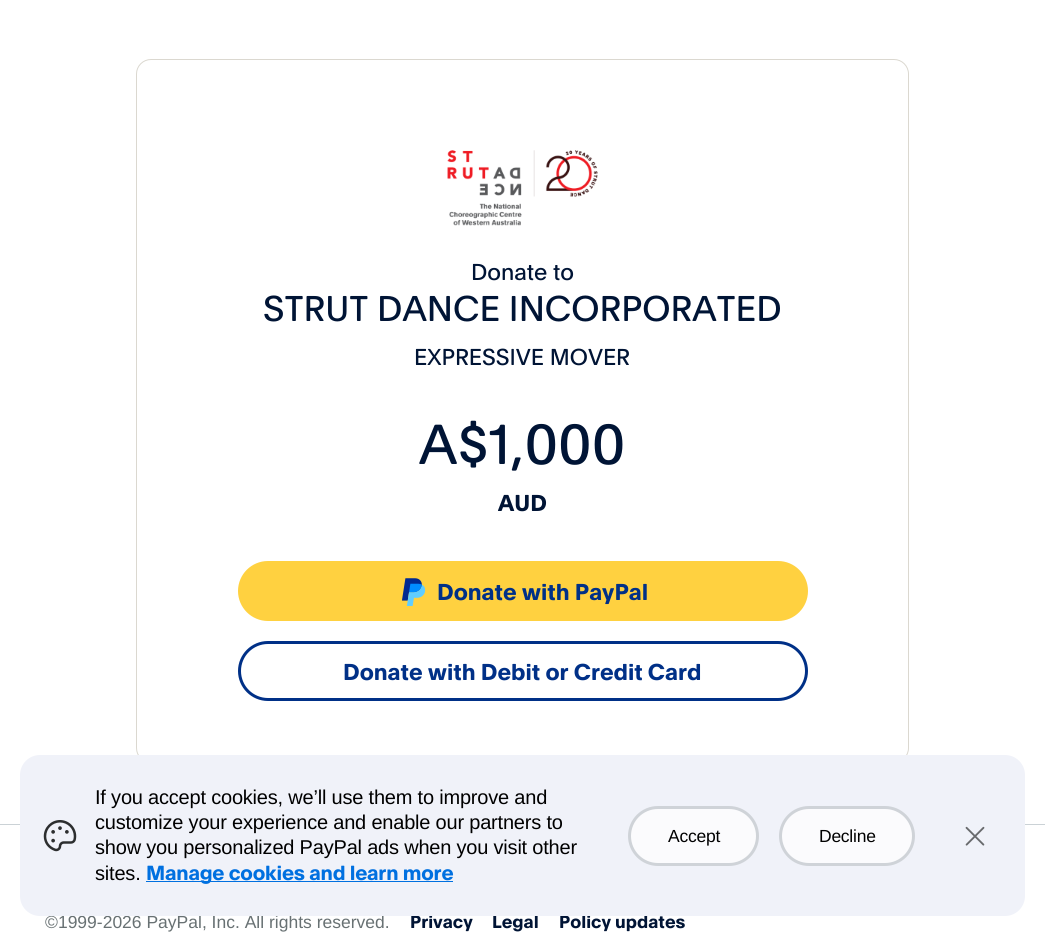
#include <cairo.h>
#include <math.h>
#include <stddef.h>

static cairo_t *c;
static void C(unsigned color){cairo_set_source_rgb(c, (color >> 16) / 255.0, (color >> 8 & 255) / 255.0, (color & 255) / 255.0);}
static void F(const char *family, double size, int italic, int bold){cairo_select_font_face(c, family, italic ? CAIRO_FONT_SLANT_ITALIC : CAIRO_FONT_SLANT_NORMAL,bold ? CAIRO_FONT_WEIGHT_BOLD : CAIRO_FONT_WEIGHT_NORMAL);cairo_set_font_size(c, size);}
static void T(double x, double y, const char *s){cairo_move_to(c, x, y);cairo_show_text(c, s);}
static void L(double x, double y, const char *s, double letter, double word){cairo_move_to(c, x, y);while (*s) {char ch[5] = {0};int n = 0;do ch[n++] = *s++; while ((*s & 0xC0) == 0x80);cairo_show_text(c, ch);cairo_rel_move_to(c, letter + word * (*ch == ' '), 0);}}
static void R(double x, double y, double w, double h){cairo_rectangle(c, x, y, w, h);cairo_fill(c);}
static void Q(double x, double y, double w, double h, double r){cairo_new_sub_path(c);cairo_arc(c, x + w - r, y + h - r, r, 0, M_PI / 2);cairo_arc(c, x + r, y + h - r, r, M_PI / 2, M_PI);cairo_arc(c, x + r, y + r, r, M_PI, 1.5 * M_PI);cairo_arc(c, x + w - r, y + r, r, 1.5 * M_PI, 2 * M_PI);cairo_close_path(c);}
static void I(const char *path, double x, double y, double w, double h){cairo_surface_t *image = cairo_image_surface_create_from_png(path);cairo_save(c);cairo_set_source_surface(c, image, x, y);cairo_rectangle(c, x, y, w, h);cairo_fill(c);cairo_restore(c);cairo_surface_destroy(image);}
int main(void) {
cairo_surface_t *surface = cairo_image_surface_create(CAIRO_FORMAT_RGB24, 1045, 936);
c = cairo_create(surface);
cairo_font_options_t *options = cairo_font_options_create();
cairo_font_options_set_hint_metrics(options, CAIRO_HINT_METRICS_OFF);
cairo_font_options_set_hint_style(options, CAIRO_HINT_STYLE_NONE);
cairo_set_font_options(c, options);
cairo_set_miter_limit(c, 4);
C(0xffffff);
cairo_paint(c);
Q(136.5,59.5,772,703,14.5);
C(0xdbd8d0);
cairo_set_line_width(c,1);
cairo_stroke(c);
I("1.png",447,150,151,76);
F("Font",22.5,0,0);
C(0x001435);
T(471,280,"Donate to");
F("Font",35,0,0);
T(263,321,"STRUT DANCE INCORPORATED");
F("Font",22.5,0,0);
T(414,365,"EXPRESSIVE MOVER");
F("Font",55,0,0);
T(419,464,"A$1,000");
F("Font",22.5,0,1);
T(498,511,"AUD");
C(0xffd140);
Q(239.5,562.5,567,57,28.5);
cairo_fill_preserve(c);
cairo_set_line_width(c,3);
cairo_stroke(c);
I("2.png",402,578,24,28);
C(0x003087);
T(437,600,"Donate with PayPal");
Q(239.5,642.5,567,57,28.5);
cairo_stroke(c);
T(343,680,"Donate with Debit or Credit Card");
C(0xcbd2d6);
R(0,824,1045,1);
F("Liberation Sans",17.5,0,0);
C(0x687173);
T(45,928,"©1999-2026 PayPal, Inc. All rights reserved.");
F("Font",17.5,0,1);
C(0x001435);
T(410,928,"Privacy");
T(492,928,"Legal");
T(559,928,"Policy updates");
C(0xf0f2f9);
Q(20,755,1005,161,20);
cairo_fill(c);
I("3.png",43,820,34,32);
F("Liberation Sans",20,0,0);
C(0x000000);
L(95,804,"If you accept cookies, we’ll use them to improve and",-.2,0);
L(95,829,"customize your experience and enable our partners to",-.2,0);
L(95,854,"show you personalized PayPal ads when you visit other",-.2,0);
L(95,880,"sites.",-.2,0);
C(0x0070e0);
R(146,881,307,1);
F("Font",20,0,1);
L(146,880,"Manage cookies and learn more",-.2,0);
C(0xfbfbfd);
Q(629.5,807.5,128,57,28.5);
cairo_fill_preserve(c);
C(0xcfd3d8);
cairo_stroke(c);
F("Liberation Sans",17.5,0,0);
C(0x000000);
L(668,842,"Accept",-.25,0);
C(0xfbfbfd);
Q(780.5,807.5,133,57,28.5);
cairo_fill_preserve(c);
C(0xcfd3d8);
cairo_stroke(c);
C(0x000000);
L(819,842,"Decline",-.25,0);
I("4.png",965,826,20,20);
cairo_surface_write_to_png(surface, "o.png");
cairo_font_options_destroy(options);
cairo_destroy(c);
cairo_surface_destroy(surface);
return 0;
}
